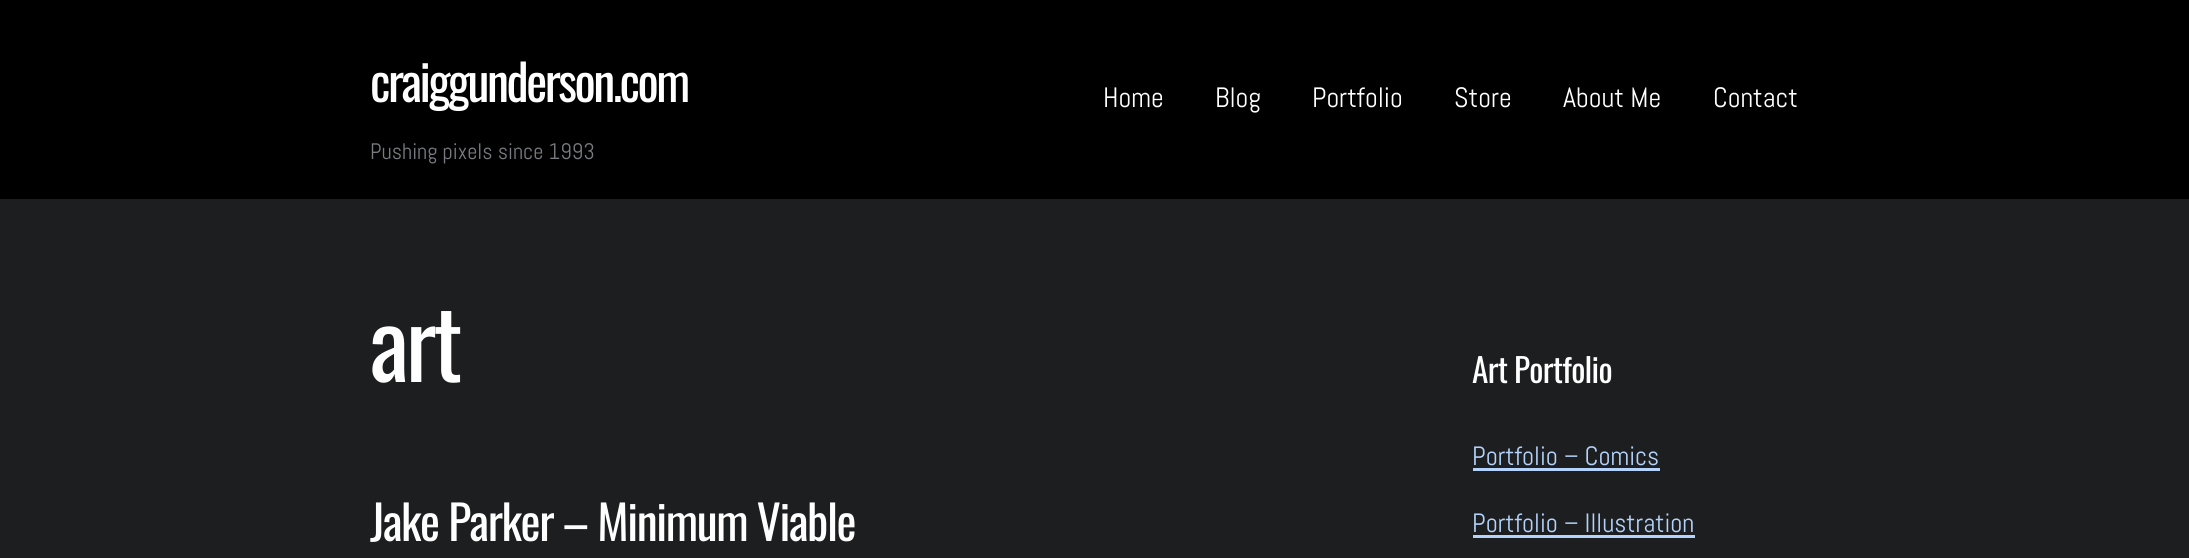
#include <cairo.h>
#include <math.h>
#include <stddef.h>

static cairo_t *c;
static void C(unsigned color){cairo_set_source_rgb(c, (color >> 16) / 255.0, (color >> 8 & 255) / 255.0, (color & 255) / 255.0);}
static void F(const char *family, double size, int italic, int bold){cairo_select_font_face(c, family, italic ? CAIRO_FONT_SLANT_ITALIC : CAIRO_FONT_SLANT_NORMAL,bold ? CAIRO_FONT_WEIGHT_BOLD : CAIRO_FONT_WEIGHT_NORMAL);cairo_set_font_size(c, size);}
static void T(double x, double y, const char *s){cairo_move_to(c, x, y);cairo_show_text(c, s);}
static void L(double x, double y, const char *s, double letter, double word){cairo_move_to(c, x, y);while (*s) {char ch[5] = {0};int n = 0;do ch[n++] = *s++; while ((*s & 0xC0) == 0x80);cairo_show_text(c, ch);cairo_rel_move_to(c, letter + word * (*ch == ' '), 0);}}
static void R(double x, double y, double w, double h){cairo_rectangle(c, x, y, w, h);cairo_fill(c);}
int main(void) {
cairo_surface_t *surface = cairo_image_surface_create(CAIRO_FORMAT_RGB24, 2189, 558);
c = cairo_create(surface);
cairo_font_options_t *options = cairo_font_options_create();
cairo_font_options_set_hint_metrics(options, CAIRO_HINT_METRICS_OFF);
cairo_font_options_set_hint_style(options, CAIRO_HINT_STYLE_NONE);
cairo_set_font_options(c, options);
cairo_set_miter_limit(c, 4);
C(0x1d1e1f);
cairo_paint(c);
C(0x000000);
R(0,0,2189,199);
F("Oswald",50,0,0);
C(0xffffff);
L(370,102,"craiggunderson.com",-2.5,0);
F("Abel",22.4,0,0);
C(0x787b80);
T(370,159,"Pushing pixels since 1993");
F("Abel",28,0,0);
C(0xffffff);
T(1103,107,"Home");
T(1215,107,"Blog");
T(1312,107,"Portfolio");
T(1454,107,"Store");
T(1563,107,"About Me");
T(1713,107,"Contact");
F("Oswald",95,0,0);
L(370,382,"art",-3,0);
F("Oswald",47.6,0,0);
L(370,541,"Jake Parker – Minimum Viable",-1.4,0);
F("Oswald",33.25,0,0);
L(1472,383,"Art Portfolio",-.7,0);
F("Abel",26.5,0,0);
C(0xb3d3fc);
T(1472,465,"Portfolio – Comics");
R(1473,468,187,3);
T(1472,532,"Portfolio – Illustration");
R(1473,535,222,3);
cairo_surface_write_to_png(surface, "o.png");
cairo_font_options_destroy(options);
cairo_destroy(c);
cairo_surface_destroy(surface);
return 0;
}
